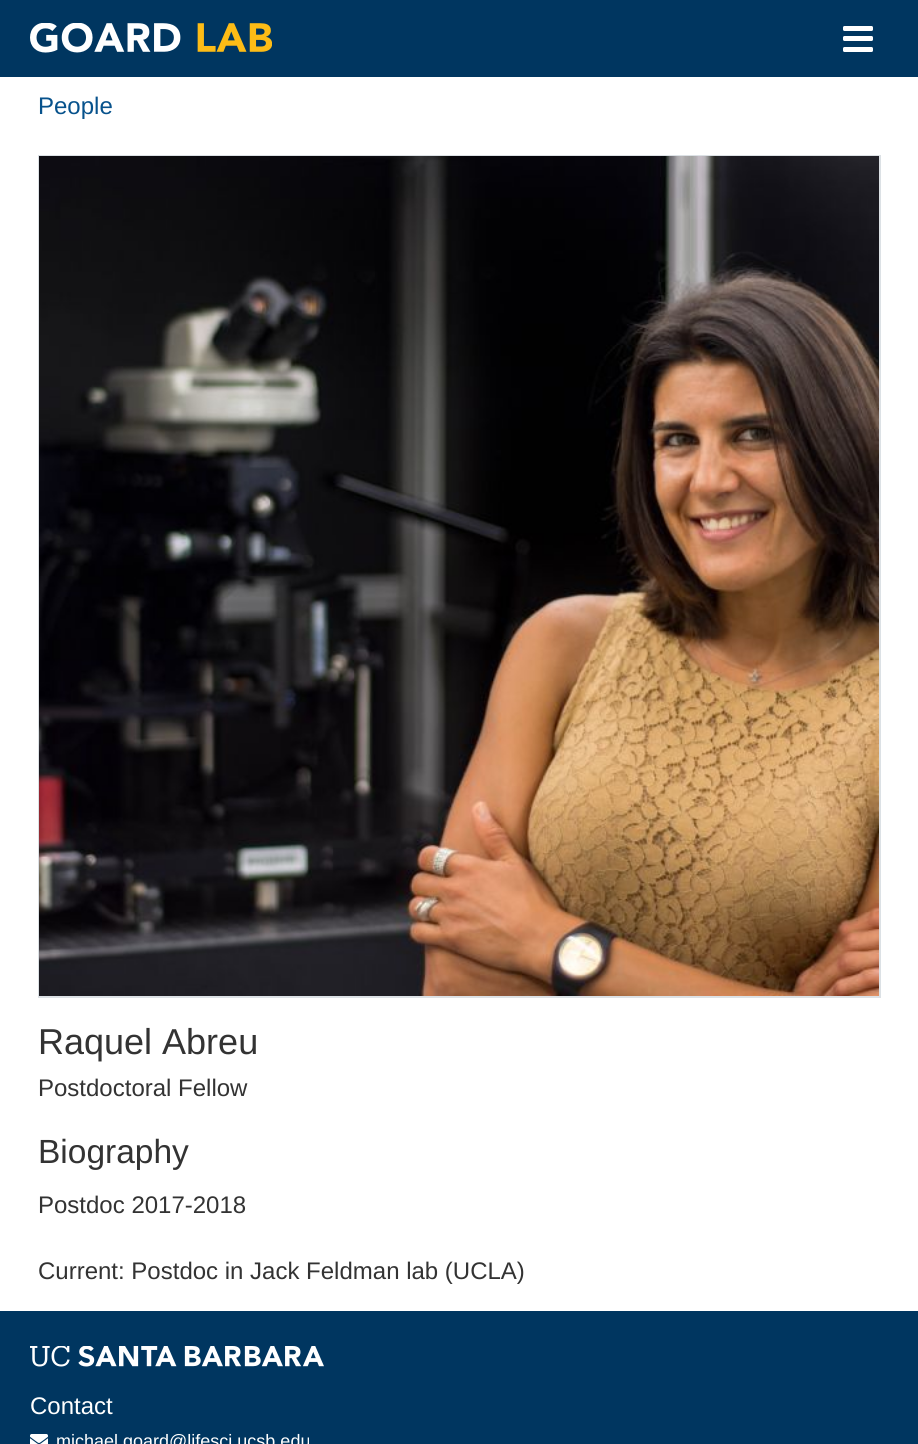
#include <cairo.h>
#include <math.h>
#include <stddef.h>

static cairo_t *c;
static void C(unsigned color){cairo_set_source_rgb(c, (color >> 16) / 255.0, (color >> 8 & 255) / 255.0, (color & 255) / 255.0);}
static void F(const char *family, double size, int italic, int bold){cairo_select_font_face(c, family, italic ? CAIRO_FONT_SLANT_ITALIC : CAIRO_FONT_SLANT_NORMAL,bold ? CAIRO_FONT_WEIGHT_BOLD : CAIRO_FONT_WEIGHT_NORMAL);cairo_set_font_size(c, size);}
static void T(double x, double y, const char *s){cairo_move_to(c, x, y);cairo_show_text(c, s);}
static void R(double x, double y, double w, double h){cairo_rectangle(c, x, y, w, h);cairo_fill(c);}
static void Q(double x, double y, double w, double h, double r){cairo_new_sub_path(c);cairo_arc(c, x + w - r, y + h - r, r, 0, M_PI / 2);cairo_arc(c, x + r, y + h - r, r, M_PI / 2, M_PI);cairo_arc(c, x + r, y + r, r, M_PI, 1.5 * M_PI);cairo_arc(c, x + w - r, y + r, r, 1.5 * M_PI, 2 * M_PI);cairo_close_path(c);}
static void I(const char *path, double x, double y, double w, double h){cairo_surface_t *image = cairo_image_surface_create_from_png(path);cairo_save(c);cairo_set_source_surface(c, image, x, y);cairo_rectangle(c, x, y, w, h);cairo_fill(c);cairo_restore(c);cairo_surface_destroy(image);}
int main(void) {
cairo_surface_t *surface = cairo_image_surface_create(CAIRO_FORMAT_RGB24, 918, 1444);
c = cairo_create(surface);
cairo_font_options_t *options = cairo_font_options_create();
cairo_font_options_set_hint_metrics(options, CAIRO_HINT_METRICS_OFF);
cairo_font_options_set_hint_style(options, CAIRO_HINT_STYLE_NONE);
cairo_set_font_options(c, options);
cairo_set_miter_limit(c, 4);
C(0xffffff);
cairo_paint(c);
C(0x003660);
R(0,0,918,77);
I("1.png",30,23,242,30);
C(0xffffff);
Q(843,26,30,5,1.5);
cairo_fill(c);
Q(843,36,30,5,1.5);
cairo_fill(c);
Q(843,47,30,5,1.5);
cairo_fill(c);
F("Liberation Sans",24,0,0);
C(0x07528c);
T(38,114,"People");
cairo_rectangle(c,39,156,841,841);
C(0xdce1e5);
cairo_stroke(c);
I("2.png",39,156,840,840);
F("Liberation Sans",36,0,0);
C(0x333333);
T(38,1054,"Raquel Abreu");
F("Liberation Sans",24,0,0);
T(38,1096,"Postdoctoral Fellow");
F("Liberation Sans",33.5,0,0);
T(38,1163,"Biography");
F("Liberation Sans",24,0,0);
T(38,1213,"Postdoc 2017-2018");
T(38,1279,"Current: Postdoc in Jack Feldman lab (UCLA)");
C(0x003660);
R(0,1311,918,133);
I("3.png",30,1346,294,21);
C(0xffffff);
T(30,1414,"Contact");
I("4.png",30,1434,18,10);
F("Liberation Sans",18,0,0);
T(56,1447,"michael.goard@lifesci.ucsb.edu");
cairo_surface_write_to_png(surface, "o.png");
cairo_font_options_destroy(options);
cairo_destroy(c);
cairo_surface_destroy(surface);
return 0;
}
